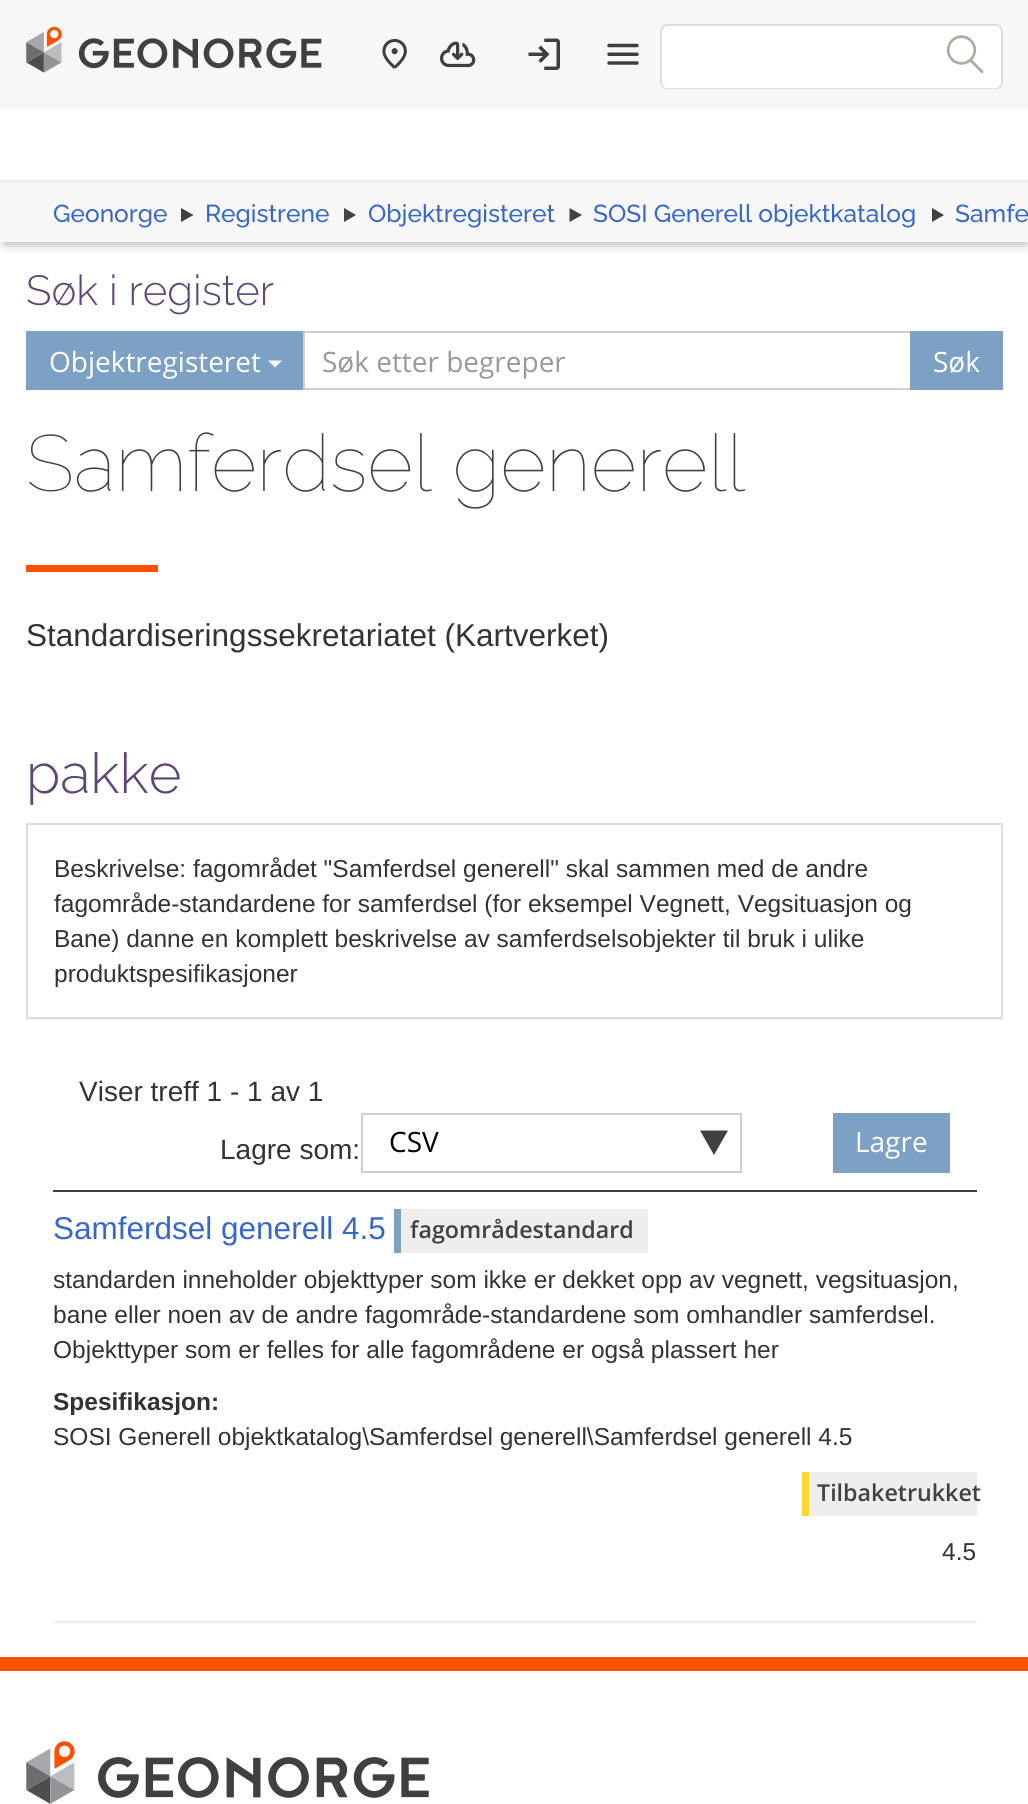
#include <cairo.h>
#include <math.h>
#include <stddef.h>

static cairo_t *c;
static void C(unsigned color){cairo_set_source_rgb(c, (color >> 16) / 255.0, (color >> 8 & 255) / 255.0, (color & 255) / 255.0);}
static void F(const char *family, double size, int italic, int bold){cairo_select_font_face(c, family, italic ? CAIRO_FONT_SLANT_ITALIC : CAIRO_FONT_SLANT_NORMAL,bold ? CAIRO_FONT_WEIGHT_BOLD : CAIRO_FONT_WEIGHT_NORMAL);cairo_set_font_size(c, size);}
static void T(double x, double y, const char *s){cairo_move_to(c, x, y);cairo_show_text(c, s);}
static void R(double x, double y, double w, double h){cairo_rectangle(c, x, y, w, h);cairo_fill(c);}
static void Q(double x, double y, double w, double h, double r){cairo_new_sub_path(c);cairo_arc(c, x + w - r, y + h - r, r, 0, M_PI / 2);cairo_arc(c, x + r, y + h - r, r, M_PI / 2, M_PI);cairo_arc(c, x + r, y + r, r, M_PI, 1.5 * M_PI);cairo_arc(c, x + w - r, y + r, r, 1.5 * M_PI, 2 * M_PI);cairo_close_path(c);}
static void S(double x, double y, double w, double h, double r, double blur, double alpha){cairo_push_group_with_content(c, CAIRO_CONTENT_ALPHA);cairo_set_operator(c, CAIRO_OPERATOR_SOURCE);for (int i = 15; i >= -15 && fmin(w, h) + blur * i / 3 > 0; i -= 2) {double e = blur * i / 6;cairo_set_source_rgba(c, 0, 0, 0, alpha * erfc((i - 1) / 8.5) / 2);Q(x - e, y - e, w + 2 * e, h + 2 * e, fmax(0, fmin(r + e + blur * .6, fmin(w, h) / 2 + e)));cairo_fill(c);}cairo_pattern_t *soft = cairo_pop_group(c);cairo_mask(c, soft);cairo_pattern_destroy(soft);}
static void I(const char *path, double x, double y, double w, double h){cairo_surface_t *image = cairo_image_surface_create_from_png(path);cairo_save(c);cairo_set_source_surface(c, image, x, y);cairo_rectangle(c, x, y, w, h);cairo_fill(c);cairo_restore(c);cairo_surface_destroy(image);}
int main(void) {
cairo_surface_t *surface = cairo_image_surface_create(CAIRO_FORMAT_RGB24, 1028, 1804);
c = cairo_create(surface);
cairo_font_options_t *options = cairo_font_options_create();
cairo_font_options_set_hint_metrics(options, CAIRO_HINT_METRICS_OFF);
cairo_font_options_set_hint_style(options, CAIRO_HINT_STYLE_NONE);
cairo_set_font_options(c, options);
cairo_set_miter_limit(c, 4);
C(0xffffff);
cairo_paint(c);
C(0xf7f7f7);
R(0,0,1028,109);
I("1.png",26,26,296,47);
I("2.png",382,38,25,31);
I("3.png",440,41,36,27);
I("4.png",528,38,32,32);
I("5.png",607,43,32,22);
C(0xffffff);
cairo_new_path(c);
cairo_move_to(c,667,25);
cairo_line_to(c,929,25);
cairo_line_to(c,929,89);
cairo_line_to(c,667,89);
cairo_curve_to(c,663,89,660,86,660,82);
cairo_line_to(c,660,32);
cairo_curve_to(c,660,28,663,25,667,25);
cairo_close_path(c);
cairo_fill(c);
C(0xdfdcda);
cairo_set_fill_rule(c,CAIRO_FILL_RULE_EVEN_ODD);
cairo_new_path(c);
cairo_move_to(c,667,24);
cairo_line_to(c,929,24);
cairo_line_to(c,929,89);
cairo_line_to(c,667,89);
cairo_curve_to(c,663,89,660,86,660,82);
cairo_line_to(c,660,32);
cairo_curve_to(c,660,28,663,24,667,24);
cairo_close_path(c);
cairo_move_to(c,667,26);
cairo_line_to(c,929,26);
cairo_line_to(c,929,88);
cairo_line_to(c,667,88);
cairo_curve_to(c,664,88,662,85,662,82);
cairo_line_to(c,662,32);
cairo_curve_to(c,662,29,664,26,667,26);
cairo_close_path(c);
cairo_fill(c);
C(0xffffff);
cairo_new_path(c);
cairo_move_to(c,929,25);
cairo_line_to(c,996,25);
cairo_curve_to(c,1000,25,1003,28,1003,32);
cairo_line_to(c,1003,82);
cairo_curve_to(c,1003,86,1000,89,996,89);
cairo_line_to(c,929,89);
cairo_close_path(c);
cairo_fill(c);
C(0xdfdcda);
cairo_new_path(c);
cairo_move_to(c,929,24);
cairo_line_to(c,996,24);
cairo_curve_to(c,1000,24,1003,28,1003,32);
cairo_line_to(c,1003,82);
cairo_curve_to(c,1003,86,1000,89,996,89);
cairo_line_to(c,929,89);
cairo_close_path(c);
cairo_move_to(c,929,26);
cairo_line_to(c,996,26);
cairo_curve_to(c,999,26,1001,29,1001,32);
cairo_line_to(c,1001,82);
cairo_curve_to(c,1001,85,999,88,996,88);
cairo_line_to(c,929,88);
cairo_close_path(c);
cairo_fill(c);
I("6.png",947,35,37,39);
C(0x000000);
S(4,191,1022,54,0,4.5,.26);
C(0xf7f7f7);
R(0,182,1028,60);
C(0xeeeeee);
R(0,180,1028,2);
F("Raleway Medium",24.5,0,0);
C(0x3867c8);
T(53,222,"Geonorge");
C(0x414042);
cairo_set_fill_rule(c,CAIRO_FILL_RULE_WINDING);
cairo_new_path(c);
cairo_move_to(c,193.5,215);
cairo_line_to(c,181,222);
cairo_line_to(c,181,208);
cairo_close_path(c);
cairo_fill(c);
C(0x3867c8);
T(205,222,"Registrene");
C(0x414042);
cairo_new_path(c);
cairo_move_to(c,356,215);
cairo_line_to(c,344,222);
cairo_line_to(c,344,208);
cairo_close_path(c);
cairo_fill(c);
C(0x3867c8);
T(368,222,"Objektregisteret");
C(0x414042);
cairo_new_path(c);
cairo_move_to(c,582,215);
cairo_line_to(c,569.5,222);
cairo_line_to(c,569.5,208);
cairo_close_path(c);
cairo_fill(c);
C(0x3867c8);
T(593,222,"SOSI Generell objektkatalog");
C(0x414042);
cairo_new_path(c);
cairo_move_to(c,944,215);
cairo_line_to(c,932,222);
cairo_line_to(c,932,208);
cairo_close_path(c);
cairo_fill(c);
C(0x3867c8);
T(955,222,"Samfe");
F("Raleway Light",42,0,0);
C(0x5d4777);
T(26,305,"Søk i register");
C(0x7da1c4);
R(26,331,277,59);
F("Open Sans",28,0,0);
C(0xffffff);
T(49,372,"Objektregisteret");
cairo_new_path(c);
cairo_move_to(c,268,360.5);
cairo_line_to(c,282,360.5);
cairo_line_to(c,275,367.5);
cairo_close_path(c);
cairo_fill(c);
cairo_rectangle(c,304,332,607,57);
C(0xcfcfcf);
cairo_stroke(c);
C(0x999999);
T(322,372,"Søk etter begreper");
C(0x7da1c4);
R(910,331,93,59);
C(0xffffff);
T(933,372,"Søk");
F("Raleway Thin",79.25,0,0);
C(0x414042);
T(26,491,"Samferdsel generell");
C(0xfe5000);
R(26,565,132,7);
F("Liberation Sans",31.5,0,0);
C(0x333333);
T(26,646,"Standardiseringssekretariatet (Kartverket)");
F("Raleway Light",56,0,0);
C(0x5d4777);
T(26,793,"pakke");
C(0x000000);
S(26,824,977,196,0,1,.05);
C(0xffffff);
cairo_rectangle(c,27,824,975,194);
cairo_fill_preserve(c);
C(0xdddddd);
cairo_stroke(c);
F("Liberation Sans",24.5,0,0);
C(0x333333);
T(54,877,"Beskrivelse: fagområdet \"Samferdsel generell\" skal sammen med de andre");
T(54,912,"fagområde-standardene for samferdsel (for eksempel Vegnett, Vegsituasjon og");
T(54,947,"Bane) danne en komplett beskrivelse av samferdselsobjekter til bruk i ulike");
T(54,982,"produktspesifikasjoner");
F("Liberation Sans",28,0,0);
T(79,1101,"Viser treff 1 - 1 av 1");
T(220,1159,"Lagre som:");
C(0x414042);
cairo_new_path(c);
cairo_move_to(c,700,1130.5);
cairo_line_to(c,714,1155);
cairo_line_to(c,728,1130.5);
cairo_close_path(c);
cairo_fill(c);
cairo_rectangle(c,362,1114,379,58);
C(0xcfcfcf);
cairo_stroke(c);
F("Open Sans",28,0,0);
C(0x000000);
T(389,1152,"CSV");
C(0x7da1c4);
R(833,1113,117,60);
C(0xffffff);
T(855,1152,"Lagre");
C(0x414042);
R(53,1190,924,2);
F("Liberation Sans",31.5,0,0);
C(0x3867c8);
T(53,1239,"Samferdsel generell 4.5");
C(0xefeeed);
R(401,1209,247,44);
C(0x7da1c4);
R(394,1209,7,44);
F("Open Sans SemiBold",23.25,0,0);
C(0x414042);
T(410,1238,"fagområdestandard");
F("Liberation Sans",24.5,0,0);
C(0x333333);
T(53,1288,"standarden inneholder objekttyper som ikke er dekket opp av vegnett, vegsituasjon,");
T(53,1323,"bane eller noen av de andre fagområde-standardene som omhandler samferdsel.");
T(53,1358,"Objekttyper som er felles for alle fagområdene er også plassert her");
F("Liberation Sans",24.5,0,1);
T(53,1410,"Spesifikasjon:");
F("Liberation Sans",24.5,0,0);
T(53,1445,"SOSI Generell objektkatalog\\Samferdsel generell\\Samferdsel generell 4.5");
C(0xefeeed);
R(809,1472,168,44);
C(0xfed633);
R(802,1472,7,44);
F("Open Sans SemiBold",23.25,0,0);
C(0x414042);
T(817,1501,"Tilbaketrukket");
F("Liberation Sans",24.5,0,0);
C(0x333333);
T(942,1560,"4.5");
C(0xeeeeee);
R(53,1621,924,2);
C(0xfe5000);
R(0,1657,1028,14);
I("7.png",26,1741,403,63);
cairo_surface_write_to_png(surface, "o.png");
cairo_font_options_destroy(options);
cairo_destroy(c);
cairo_surface_destroy(surface);
return 0;
}
